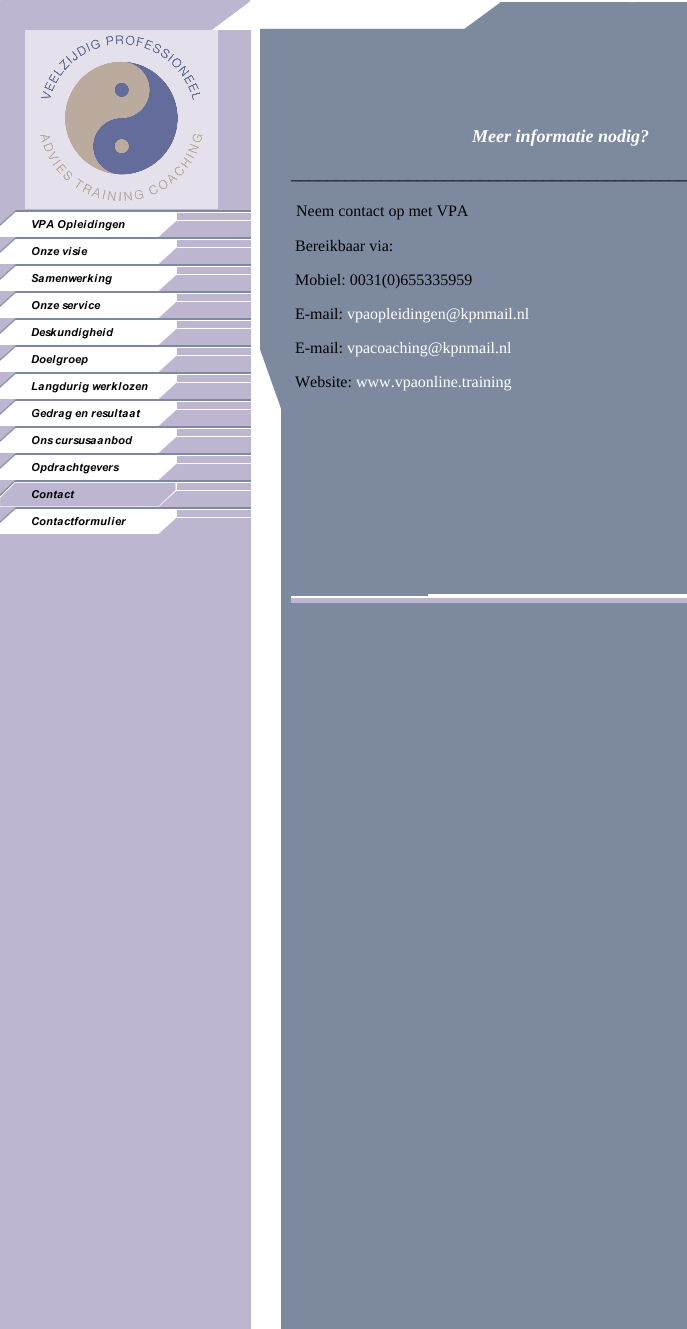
#include <cairo.h>
#include <math.h>
#include <stddef.h>

static cairo_t *c;
static void C(unsigned color){cairo_set_source_rgb(c, (color >> 16) / 255.0, (color >> 8 & 255) / 255.0, (color & 255) / 255.0);}
static void F(const char *family, double size, int italic, int bold){cairo_select_font_face(c, family, italic ? CAIRO_FONT_SLANT_ITALIC : CAIRO_FONT_SLANT_NORMAL,bold ? CAIRO_FONT_WEIGHT_BOLD : CAIRO_FONT_WEIGHT_NORMAL);cairo_set_font_size(c, size);}
static void T(double x, double y, const char *s){cairo_move_to(c, x, y);cairo_show_text(c, s);}
static void R(double x, double y, double w, double h){cairo_rectangle(c, x, y, w, h);cairo_fill(c);}
static void I(const char *path, double x, double y, double w, double h){cairo_surface_t *image = cairo_image_surface_create_from_png(path);cairo_save(c);cairo_set_source_surface(c, image, x, y);cairo_rectangle(c, x, y, w, h);cairo_fill(c);cairo_restore(c);cairo_surface_destroy(image);}
int main(void) {
cairo_surface_t *surface = cairo_image_surface_create(CAIRO_FORMAT_RGB24, 687, 1329);
c = cairo_create(surface);
cairo_font_options_t *options = cairo_font_options_create();
cairo_font_options_set_hint_metrics(options, CAIRO_HINT_METRICS_OFF);
cairo_font_options_set_hint_style(options, CAIRO_HINT_STYLE_NONE);
cairo_set_font_options(c, options);
cairo_set_miter_limit(c, 4);
C(0x7d899f);
cairo_paint(c);
I("1.png",0,603,281,726);
I("2.png",0,30,281,573);
I("3.png",635,0,52,30);
I("4.png",0,0,635,30);
C(0xcac3d8);
R(0,0,1,1);
I("5.png",0,210,251,27);
I("6.png",0,237,251,27);
I("7.png",0,264,251,27);
I("8.png",0,291,251,27);
I("9.png",0,318,251,27);
I("10.png",0,345,251,27);
I("11.png",0,372,251,27);
I("12.png",0,399,251,27);
I("13.png",0,426,251,27);
I("14.png",0,453,251,27);
I("15.png",0,480,251,27);
I("16.png",0,507,251,27);
I("17.png",25,30,193,179);
I("18.png",260,30,21,379);
F("Liberation Serif",18,1,1);
C(0xffffff);
T(472,142,"Meer informatie nodig?");
F("Liberation Serif",18,0,0);
C(0x000000);
T(291,179,"____________________________________________");
F("Liberation Serif",16,0,0);
T(296,216,"Neem contact op met VPA");
T(295,251,"Bereikbaar via:");
T(295,285,"Mobiel: 0031(0)655335959");
T(295,319,"E-mail:");
C(0xffffff);
T(347,319,"vpaopleidingen@kpnmail.nl");
C(0x000000);
T(295,353,"E-mail:");
C(0xffffff);
T(347,353,"vpacoaching@kpnmail.nl");
C(0x000000);
T(295,387,"Website:");
C(0xffffff);
T(356,387,"www.vpaonline.training");
R(291,594,396,4);
C(0x7d899f);
R(291,594,137,2);
C(0xbeb5d0);
R(291,598,396,5);
cairo_surface_write_to_png(surface, "o.png");
cairo_font_options_destroy(options);
cairo_destroy(c);
cairo_surface_destroy(surface);
return 0;
}
